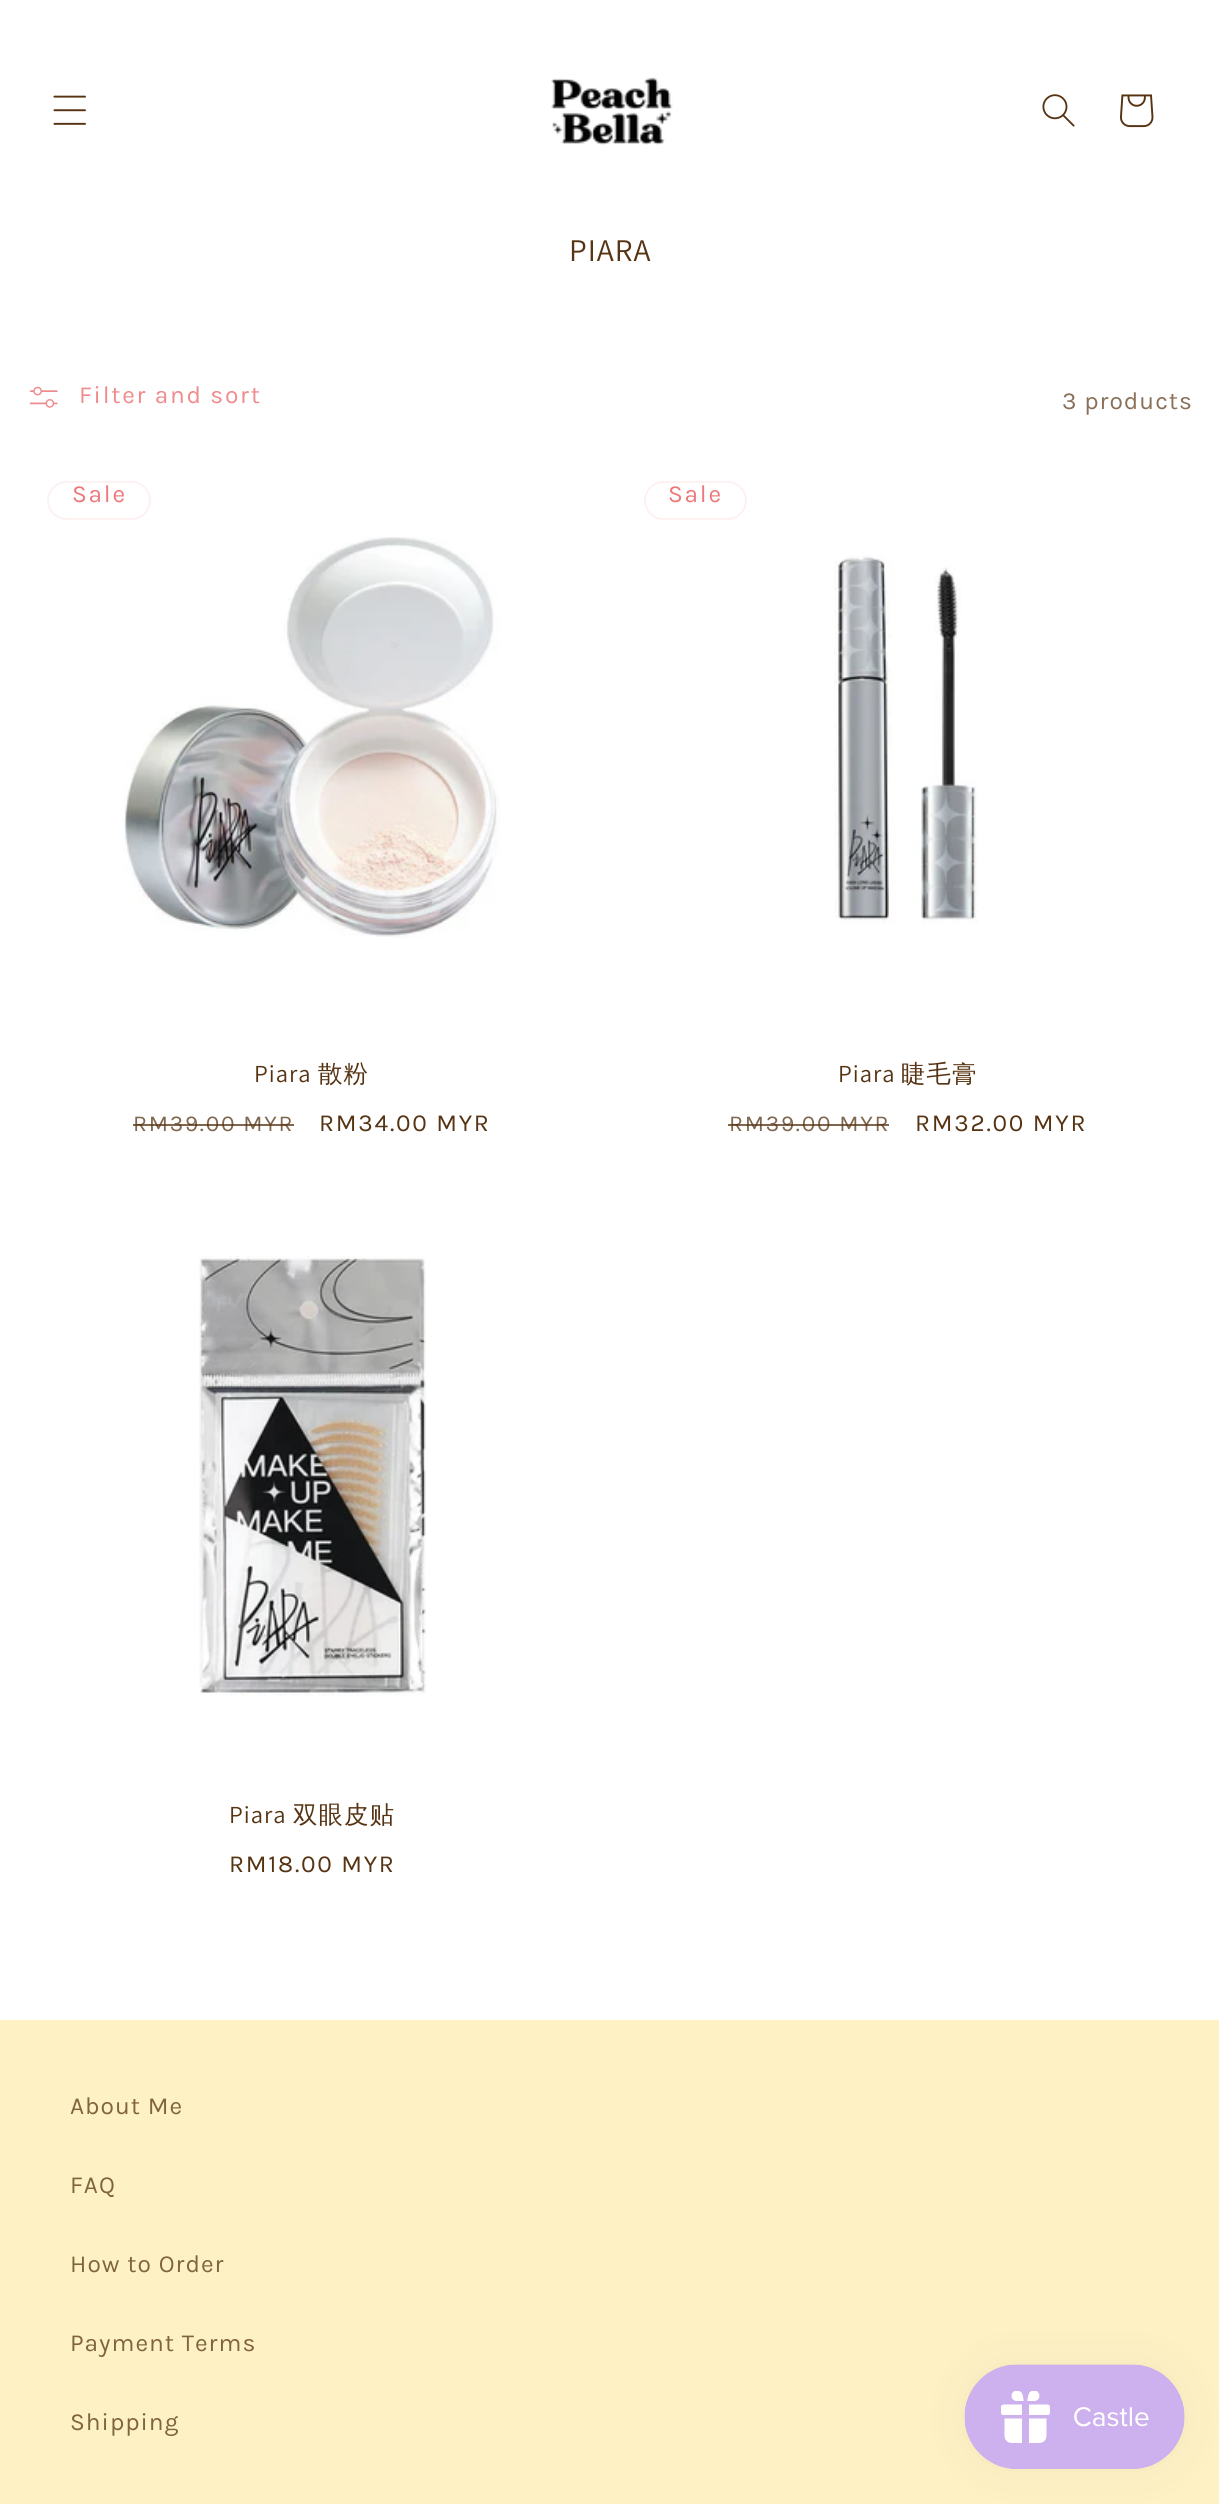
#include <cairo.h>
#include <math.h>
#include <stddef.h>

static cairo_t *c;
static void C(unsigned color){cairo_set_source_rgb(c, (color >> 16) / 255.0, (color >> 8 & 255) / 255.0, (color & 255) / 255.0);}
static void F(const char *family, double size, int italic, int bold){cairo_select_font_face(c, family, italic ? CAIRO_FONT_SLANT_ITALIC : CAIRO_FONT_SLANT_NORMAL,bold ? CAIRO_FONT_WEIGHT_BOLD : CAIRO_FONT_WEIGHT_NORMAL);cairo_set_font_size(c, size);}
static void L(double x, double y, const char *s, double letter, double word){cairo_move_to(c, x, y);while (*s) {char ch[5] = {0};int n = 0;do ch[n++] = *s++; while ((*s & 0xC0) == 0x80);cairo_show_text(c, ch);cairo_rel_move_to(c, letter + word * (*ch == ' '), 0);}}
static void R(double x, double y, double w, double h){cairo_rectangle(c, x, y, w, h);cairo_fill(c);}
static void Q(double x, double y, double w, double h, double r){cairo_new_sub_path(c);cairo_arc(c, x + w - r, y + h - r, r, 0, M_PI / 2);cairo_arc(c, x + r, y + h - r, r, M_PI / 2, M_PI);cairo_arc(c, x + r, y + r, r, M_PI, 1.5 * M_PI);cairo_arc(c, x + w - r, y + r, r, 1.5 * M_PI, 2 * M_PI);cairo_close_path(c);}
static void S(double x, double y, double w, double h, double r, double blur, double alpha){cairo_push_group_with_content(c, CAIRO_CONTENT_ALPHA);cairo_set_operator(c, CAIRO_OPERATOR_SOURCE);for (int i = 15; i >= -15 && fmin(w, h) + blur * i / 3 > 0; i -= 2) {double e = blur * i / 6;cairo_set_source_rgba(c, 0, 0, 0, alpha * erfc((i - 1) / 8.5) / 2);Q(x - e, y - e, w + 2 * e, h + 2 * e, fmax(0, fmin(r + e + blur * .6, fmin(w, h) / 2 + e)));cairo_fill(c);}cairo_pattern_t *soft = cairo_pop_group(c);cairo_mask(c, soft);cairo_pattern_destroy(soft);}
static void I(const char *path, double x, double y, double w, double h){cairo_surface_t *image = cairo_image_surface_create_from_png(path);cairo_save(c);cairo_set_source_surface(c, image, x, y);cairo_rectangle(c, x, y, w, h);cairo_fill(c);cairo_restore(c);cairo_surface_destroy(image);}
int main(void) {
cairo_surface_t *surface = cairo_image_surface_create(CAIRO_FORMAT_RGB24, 1219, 2504);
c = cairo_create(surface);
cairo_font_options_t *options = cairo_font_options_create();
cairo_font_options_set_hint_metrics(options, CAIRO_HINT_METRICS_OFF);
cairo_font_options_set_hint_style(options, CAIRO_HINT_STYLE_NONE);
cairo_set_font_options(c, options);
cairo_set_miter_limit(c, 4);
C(0xffffff);
cairo_paint(c);
I("1.png",53,95,33,30);
I("2.png",551,77,122,68);
I("3.png",1042,94,33,33);
I("4.png",1120,94,34,34);
F("Assistant",31.5,0,0);
C(0x563312);
L(569,261,"PIARA",1,0);
I("5.png",29,386,29,22);
F("Karla",24.5,0,0);
C(0xf08b8d);
L(79,403,"Filter and sort",1.75,0);
C(0x897059);
L(1062,409,"3 products",1,0);
Q(48,482,102,37,18.5);
C(0xfdf1f2);
cairo_stroke(c);
C(0xed7779);
L(72,502,"Sale",1.75,0);
I("6.png",123,537,377,401);
F("Assistant",24.5,0,0);
C(0x563312);
L(254,1082,"Piara",1,0);
F("WenQuanYi Zen Hei Medium",24.5,0,0);
L(318,1082,"散粉",1,0);
F("Karla",22.75,0,0);
C(0x80664d);
L(133,1131,"RM39.00 MYR",1.75,0);
cairo_set_source_rgba(c,0.337,0.2,0.071,0.75);
R(133,1124,161,2);
F("Karla",24.5,0,0);
C(0x563312);
L(319,1131,"RM34.00 MYR",1.75,0);
Q(645,482,101,37,18.5);
C(0xfdf1f2);
cairo_stroke(c);
C(0xed7779);
L(668,502,"Sale",1.75,0);
I("7.png",834,555,144,369);
F("Assistant",24.5,0,0);
C(0x563312);
L(838,1082,"Piara",1,0);
F("WenQuanYi Zen Hei Medium",24.5,0,0);
L(901,1082,"睫毛膏",1,0);
F("Karla",22.75,0,0);
C(0x80664d);
L(729,1131,"RM39.00 MYR",1.75,0);
cairo_set_source_rgba(c,0.337,0.2,0.071,0.75);
R(728,1124,161,2);
F("Karla",24.5,0,0);
C(0x563312);
L(915,1131,"RM32.00 MYR",1.75,0);
I("8.png",199,1256,227,440);
F("Assistant",24.5,0,0);
L(229,1823,"Piara",1,0);
F("WenQuanYi Zen Hei Medium",24.5,0,0);
L(293,1823,"双眼皮贴",1,0);
F("Karla",24.5,0,0);
L(229,1872,"RM18.00 MYR",1.75,0);
C(0xfef2c5);
R(0,2020,1219,484);
C(0x80633f);
L(70,2114,"About Me",1,0);
L(70,2193,"FAQ",1,0);
L(70,2272,"How to Order",1,0);
L(70,2351,"Payment Terms",1,0);
L(70,2430,"Shipping",1,0);
C(0x000000);
S(964,2364,221,105,52.5,22,.05);
I("9.png",964,2364,221,105);
cairo_surface_write_to_png(surface, "o.png");
cairo_font_options_destroy(options);
cairo_destroy(c);
cairo_surface_destroy(surface);
return 0;
}
